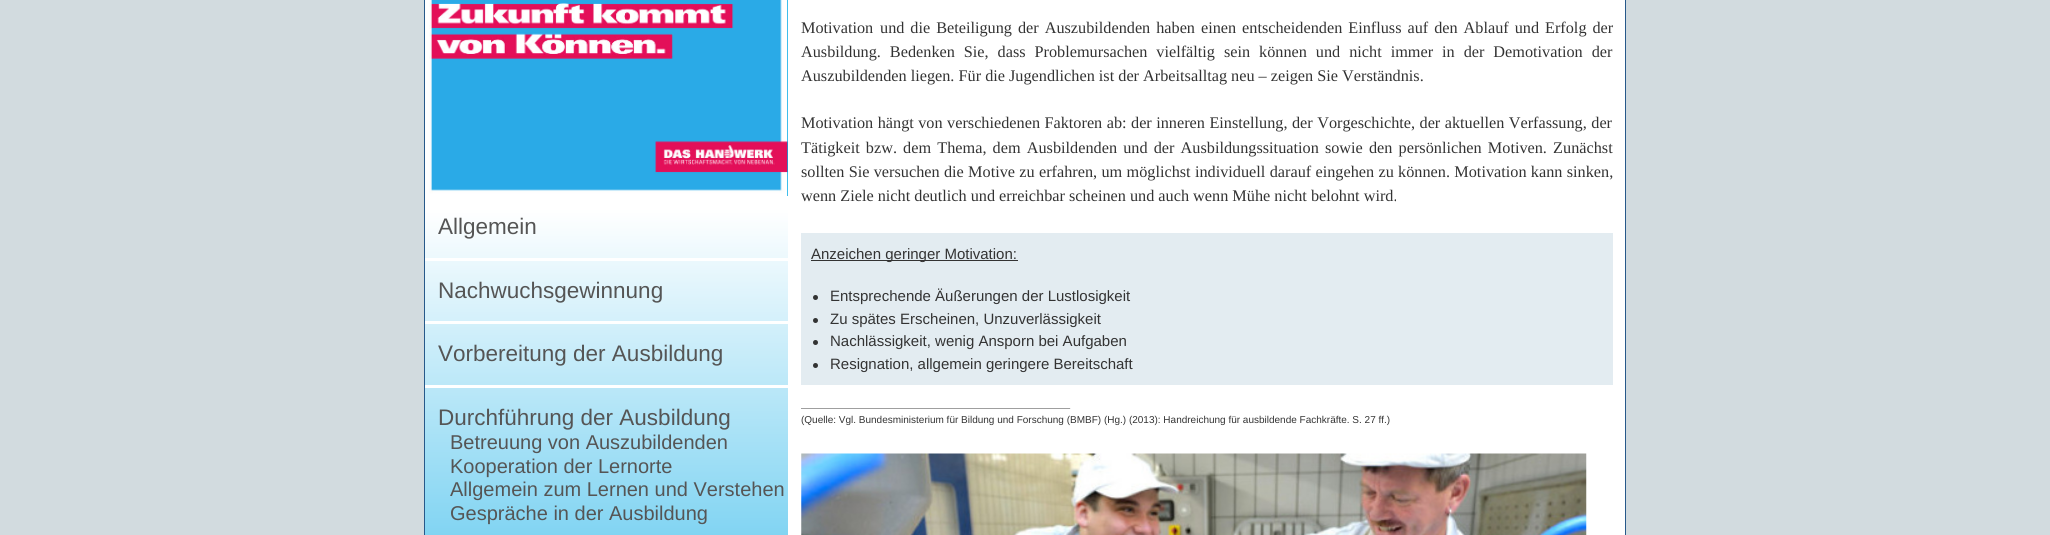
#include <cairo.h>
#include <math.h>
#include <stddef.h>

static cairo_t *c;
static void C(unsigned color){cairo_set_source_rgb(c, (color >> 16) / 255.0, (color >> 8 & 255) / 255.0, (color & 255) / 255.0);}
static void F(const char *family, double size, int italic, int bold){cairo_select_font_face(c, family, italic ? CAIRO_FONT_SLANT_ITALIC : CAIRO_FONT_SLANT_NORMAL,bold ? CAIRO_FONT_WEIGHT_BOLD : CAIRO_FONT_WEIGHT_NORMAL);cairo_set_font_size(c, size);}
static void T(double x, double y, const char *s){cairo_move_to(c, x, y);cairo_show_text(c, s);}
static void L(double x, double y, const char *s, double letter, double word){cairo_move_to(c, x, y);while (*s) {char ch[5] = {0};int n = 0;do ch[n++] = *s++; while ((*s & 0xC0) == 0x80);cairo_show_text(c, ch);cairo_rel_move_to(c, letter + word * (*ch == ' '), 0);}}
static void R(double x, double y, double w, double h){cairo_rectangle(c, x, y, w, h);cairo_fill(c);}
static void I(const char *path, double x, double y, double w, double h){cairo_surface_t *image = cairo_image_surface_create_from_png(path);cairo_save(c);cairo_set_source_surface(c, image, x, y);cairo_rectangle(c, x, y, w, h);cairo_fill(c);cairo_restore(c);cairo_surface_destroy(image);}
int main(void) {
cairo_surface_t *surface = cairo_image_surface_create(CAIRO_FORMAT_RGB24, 2050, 535);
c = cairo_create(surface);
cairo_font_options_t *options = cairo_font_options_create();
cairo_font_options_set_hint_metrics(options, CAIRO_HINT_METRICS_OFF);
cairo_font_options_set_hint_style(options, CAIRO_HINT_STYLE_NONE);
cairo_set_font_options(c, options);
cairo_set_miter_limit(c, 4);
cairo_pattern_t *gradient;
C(0xd2dbdf);
cairo_paint(c);
cairo_rectangle(c,424.5,-.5,1201,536);
C(0x27598a);
cairo_set_line_width(c,1);
cairo_stroke(c);
C(0xffffff);
R(788,0,837,535);
C(0x00a8e5);
R(787,0,1,196);
I("1.png",425,0,363,196);
C(0xffffff);
R(425,196,363,13);
gradient = cairo_pattern_create_linear(606,209,606,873);
cairo_pattern_add_color_stop_rgba(gradient,0,1,1,1,1);
cairo_pattern_add_color_stop_rgba(gradient,1,0,0.659,0.898,1);
cairo_set_source(c,gradient);
cairo_pattern_destroy(gradient);
R(425,209,363,326);
F("Liberation Sans",22.5,0,0);
C(0x555555);
T(438,234,"Allgemein");
C(0xffffff);
R(425,258,363,3);
C(0x555555);
T(438,298,"Nachwuchsgewinnung");
C(0xffffff);
R(425,321,363,3);
C(0x555555);
T(438,361,"Vorbereitung der Ausbildung");
C(0xffffff);
R(425,385,363,3);
C(0x555555);
T(438,425,"Durchführung der Ausbildung");
F("Liberation Sans",20,0,0);
T(450,449,"Betreuung von Auszubildenden");
T(450,473,"Kooperation der Lernorte");
T(450,496,"Allgemein zum Lernen und Verstehen");
T(450,520,"Gespräche in der Ausbildung");
F("Liberation Serif",16.25,0,0);
C(0x333333);
T(801,33,"Motivation");
L(880,33,"und die Beteiligung der Auszubildenden haben einen entscheidenden Einfluss auf den Ablauf und Erfolg der",0,1.9);
L(801,57,"Ausbildung. Bedenken Sie, dass Problemursachen vielfältig sein können und nicht immer in der Demotivation der",0,4.9);
T(801,81,"Auszubildenden liegen. Für die Jugendlichen ist der Arbeitsalltag neu – zeigen Sie Verständnis.");
L(801,128,"Motivation hängt von verschiedenen Faktoren ab: der inneren Einstellung, der Vorgeschichte, der aktuellen Verfassung, der",0,.4);
L(801,153,"Tätigkeit bzw. dem Thema, dem Ausbildenden und der Ausbildungssituation sowie den persönlichen Motiven. Zunächst",0,2.1);
L(801,177,"sollten Sie versuchen die Motive zu erfahren, um möglichst individuell darauf eingehen zu können. Motivation kann sinken,",0,.25);
T(801,201,"wenn Ziele nicht deutlich und erreichbar scheinen und auch wenn Mühe nicht belohnt wird.");
C(0xe3ecf1);
R(801,233,812,152);
C(0x333333);
R(811,260,207,1);
F("Liberation Sans",15,0,0);
T(811,259,"Anzeichen geringer Motivation:");
cairo_new_path(c);
cairo_arc(c,815.5,297.5,2.5,0,2 * M_PI);
cairo_fill(c);
T(830,301,"Entsprechende Äußerungen der Lustlosigkeit");
cairo_new_path(c);
cairo_arc(c,815.5,320.5,2.5,0,2 * M_PI);
cairo_fill(c);
T(830,324,"Zu spätes Erscheinen, Unzuverlässigkeit");
cairo_new_path(c);
cairo_arc(c,815.5,342.5,2.5,0,2 * M_PI);
cairo_fill(c);
T(830,346,"Nachlässigkeit, wenig Ansporn bei Aufgaben");
cairo_new_path(c);
cairo_arc(c,815.5,365.5,2.5,0,2 * M_PI);
cairo_fill(c);
T(830,369,"Resignation, allgemein geringere Bereitschaft");
C(0x9f9f9f);
R(801,408,270,1);
C(0xeeeeee);
R(1070,408,1,1);
F("Liberation Sans",10,0,0);
C(0x333333);
T(801,423,"(Quelle: Vgl. Bundesministerium für Bildung und Forschung (BMBF) (Hg.) (2013): Handreichung für ausbildende Fachkräfte. S. 27 ff.)");
I("2.png",801,453,786,82);
cairo_surface_write_to_png(surface, "o.png");
cairo_font_options_destroy(options);
cairo_destroy(c);
cairo_surface_destroy(surface);
return 0;
}
